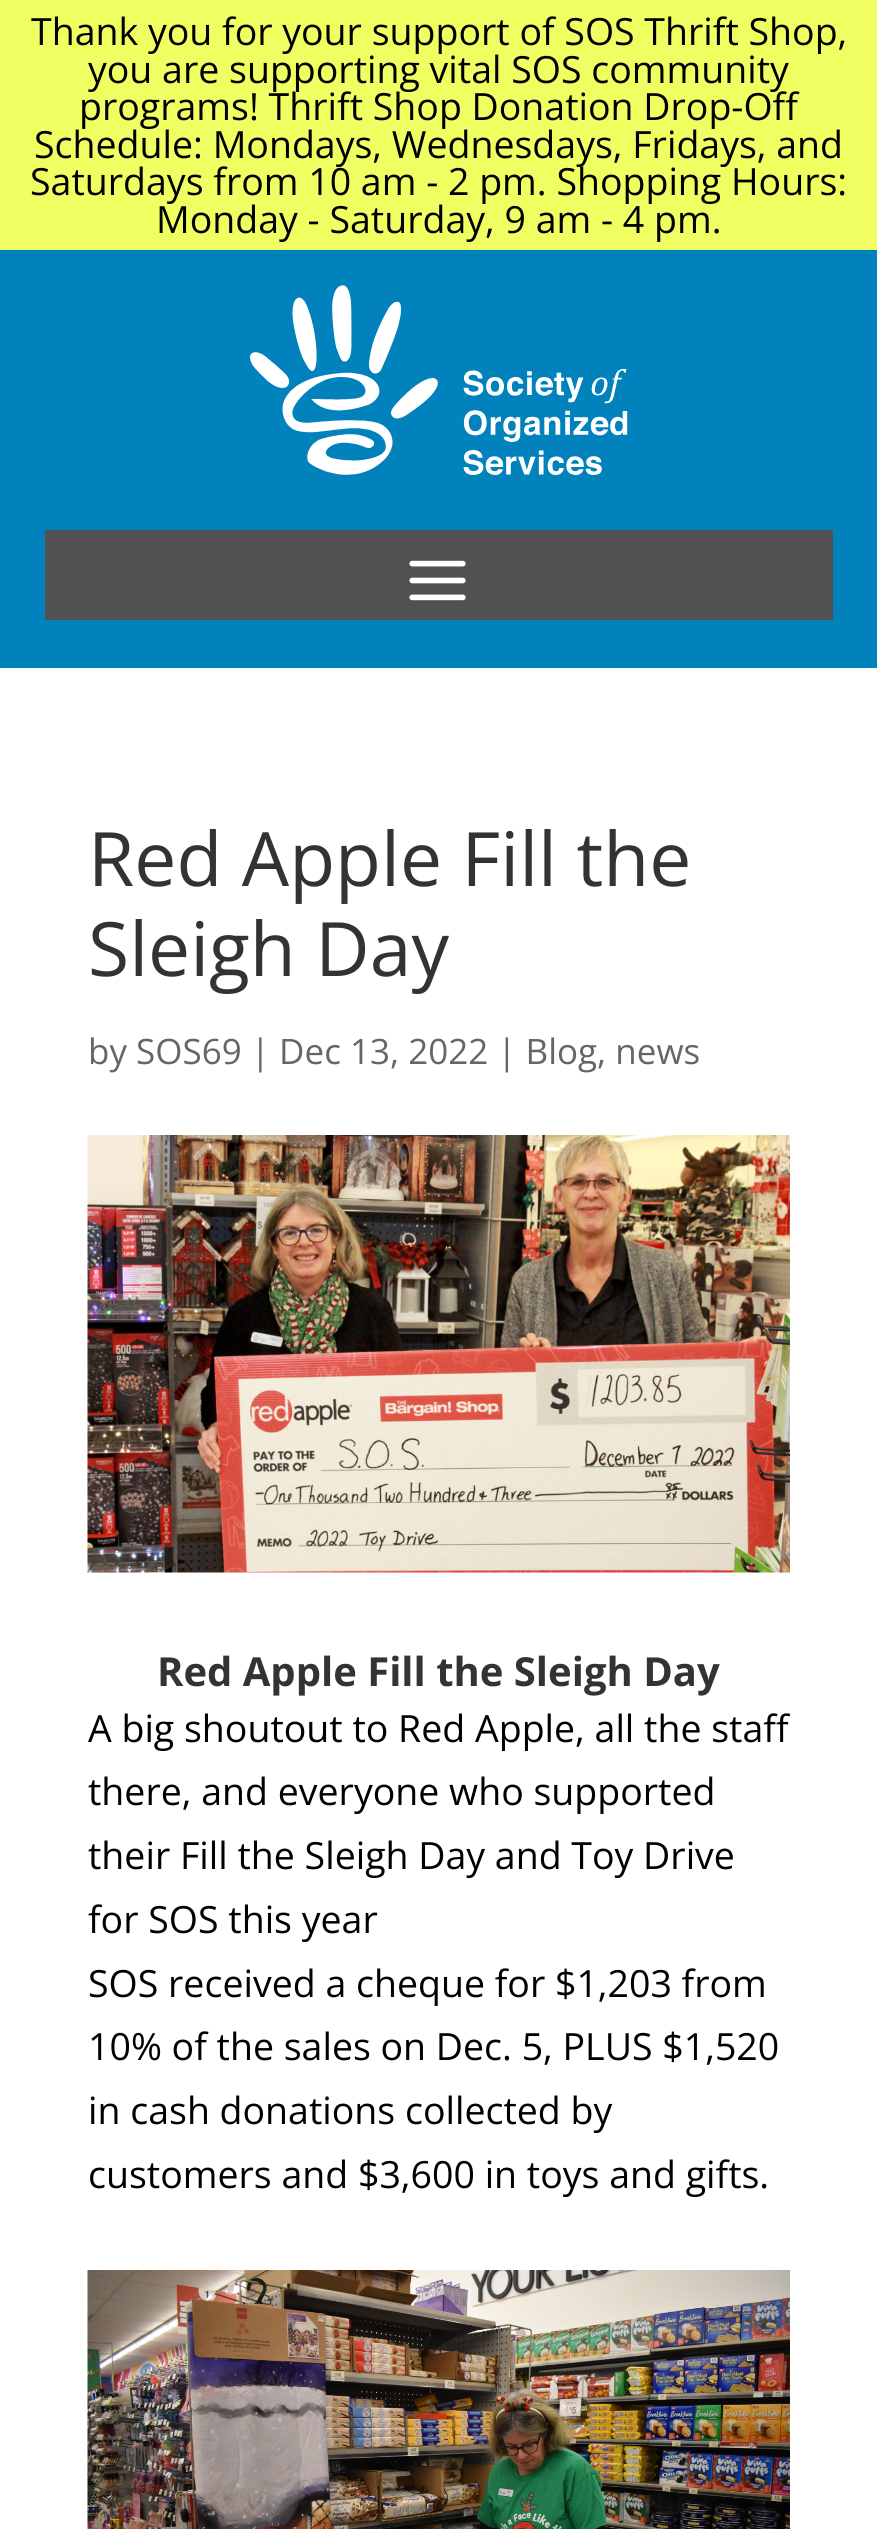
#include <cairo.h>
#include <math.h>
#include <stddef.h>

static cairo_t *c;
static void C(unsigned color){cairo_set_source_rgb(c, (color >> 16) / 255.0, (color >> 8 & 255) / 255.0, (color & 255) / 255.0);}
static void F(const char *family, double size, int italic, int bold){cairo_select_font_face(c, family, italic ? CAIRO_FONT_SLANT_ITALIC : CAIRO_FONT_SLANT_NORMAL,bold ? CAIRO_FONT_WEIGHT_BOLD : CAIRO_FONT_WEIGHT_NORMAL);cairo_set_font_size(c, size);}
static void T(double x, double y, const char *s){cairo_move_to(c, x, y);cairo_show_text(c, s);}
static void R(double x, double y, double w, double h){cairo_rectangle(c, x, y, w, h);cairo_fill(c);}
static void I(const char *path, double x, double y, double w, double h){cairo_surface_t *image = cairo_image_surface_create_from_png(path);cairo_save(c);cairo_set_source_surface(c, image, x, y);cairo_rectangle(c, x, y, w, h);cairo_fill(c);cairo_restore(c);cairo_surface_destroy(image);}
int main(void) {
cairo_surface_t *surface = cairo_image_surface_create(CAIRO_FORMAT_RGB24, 877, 2529);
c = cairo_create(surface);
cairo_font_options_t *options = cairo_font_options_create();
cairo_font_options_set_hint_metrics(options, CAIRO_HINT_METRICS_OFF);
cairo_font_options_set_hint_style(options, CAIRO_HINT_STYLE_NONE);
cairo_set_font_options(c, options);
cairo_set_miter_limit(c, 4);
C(0xffffff);
cairo_paint(c);
C(0xefff61);
R(0,0,877,250);
F("Open Sans",37.5,0,0);
C(0x000000);
T(31,45,"Thank you for your support of SOS Thrift Shop,");
T(88,83,"you are supporting vital SOS community");
T(79,120,"programs! Thrift Shop Donation Drop-Off");
T(34,158,"Schedule: Mondays, Wednesdays, Fridays, and");
T(30,195,"Saturdays from 10 am - 2 pm. Shopping Hours:");
T(156,233,"Monday - Saturday, 9 am - 4 pm.");
C(0x0282bc);
R(0,250,877,418);
I("1.png",250,285,378,190);
C(0x515151);
R(45,530,788,90);
I("2.png",409,560,57,41);
F("Open Sans",75,0,0);
C(0x333333);
T(88,886,"Red Apple Fill the");
T(88,976,"Sleigh Day");
F("Open Sans",35,0,0);
C(0x666666);
T(88,1064,"by SOS69 | Dec 13, 2022 | Blog, news");
I("3.png",87,1135,703,438);
F("Open Sans",40,0,1);
C(0x333333);
T(157,1686,"Red Apple Fill the Sleigh Day");
F("Open Sans",37.5,0,0);
C(0x000000);
T(88,1742,"A big shoutout to Red Apple, all the staff");
T(88,1805,"there, and everyone who supported");
T(88,1869,"their Fill the Sleigh Day and Toy Drive");
T(88,1933,"for SOS this year");
T(88,1997,"SOS received a cheque for $1,203 from");
T(88,2060,"10% of the sales on Dec. 5, PLUS $1,520");
T(88,2124,"in cash donations collected by");
T(88,2188,"customers and $3,600 in toys and gifts.");
I("4.png",87,2270,703,259);
cairo_surface_write_to_png(surface, "o.png");
cairo_font_options_destroy(options);
cairo_destroy(c);
cairo_surface_destroy(surface);
return 0;
}
